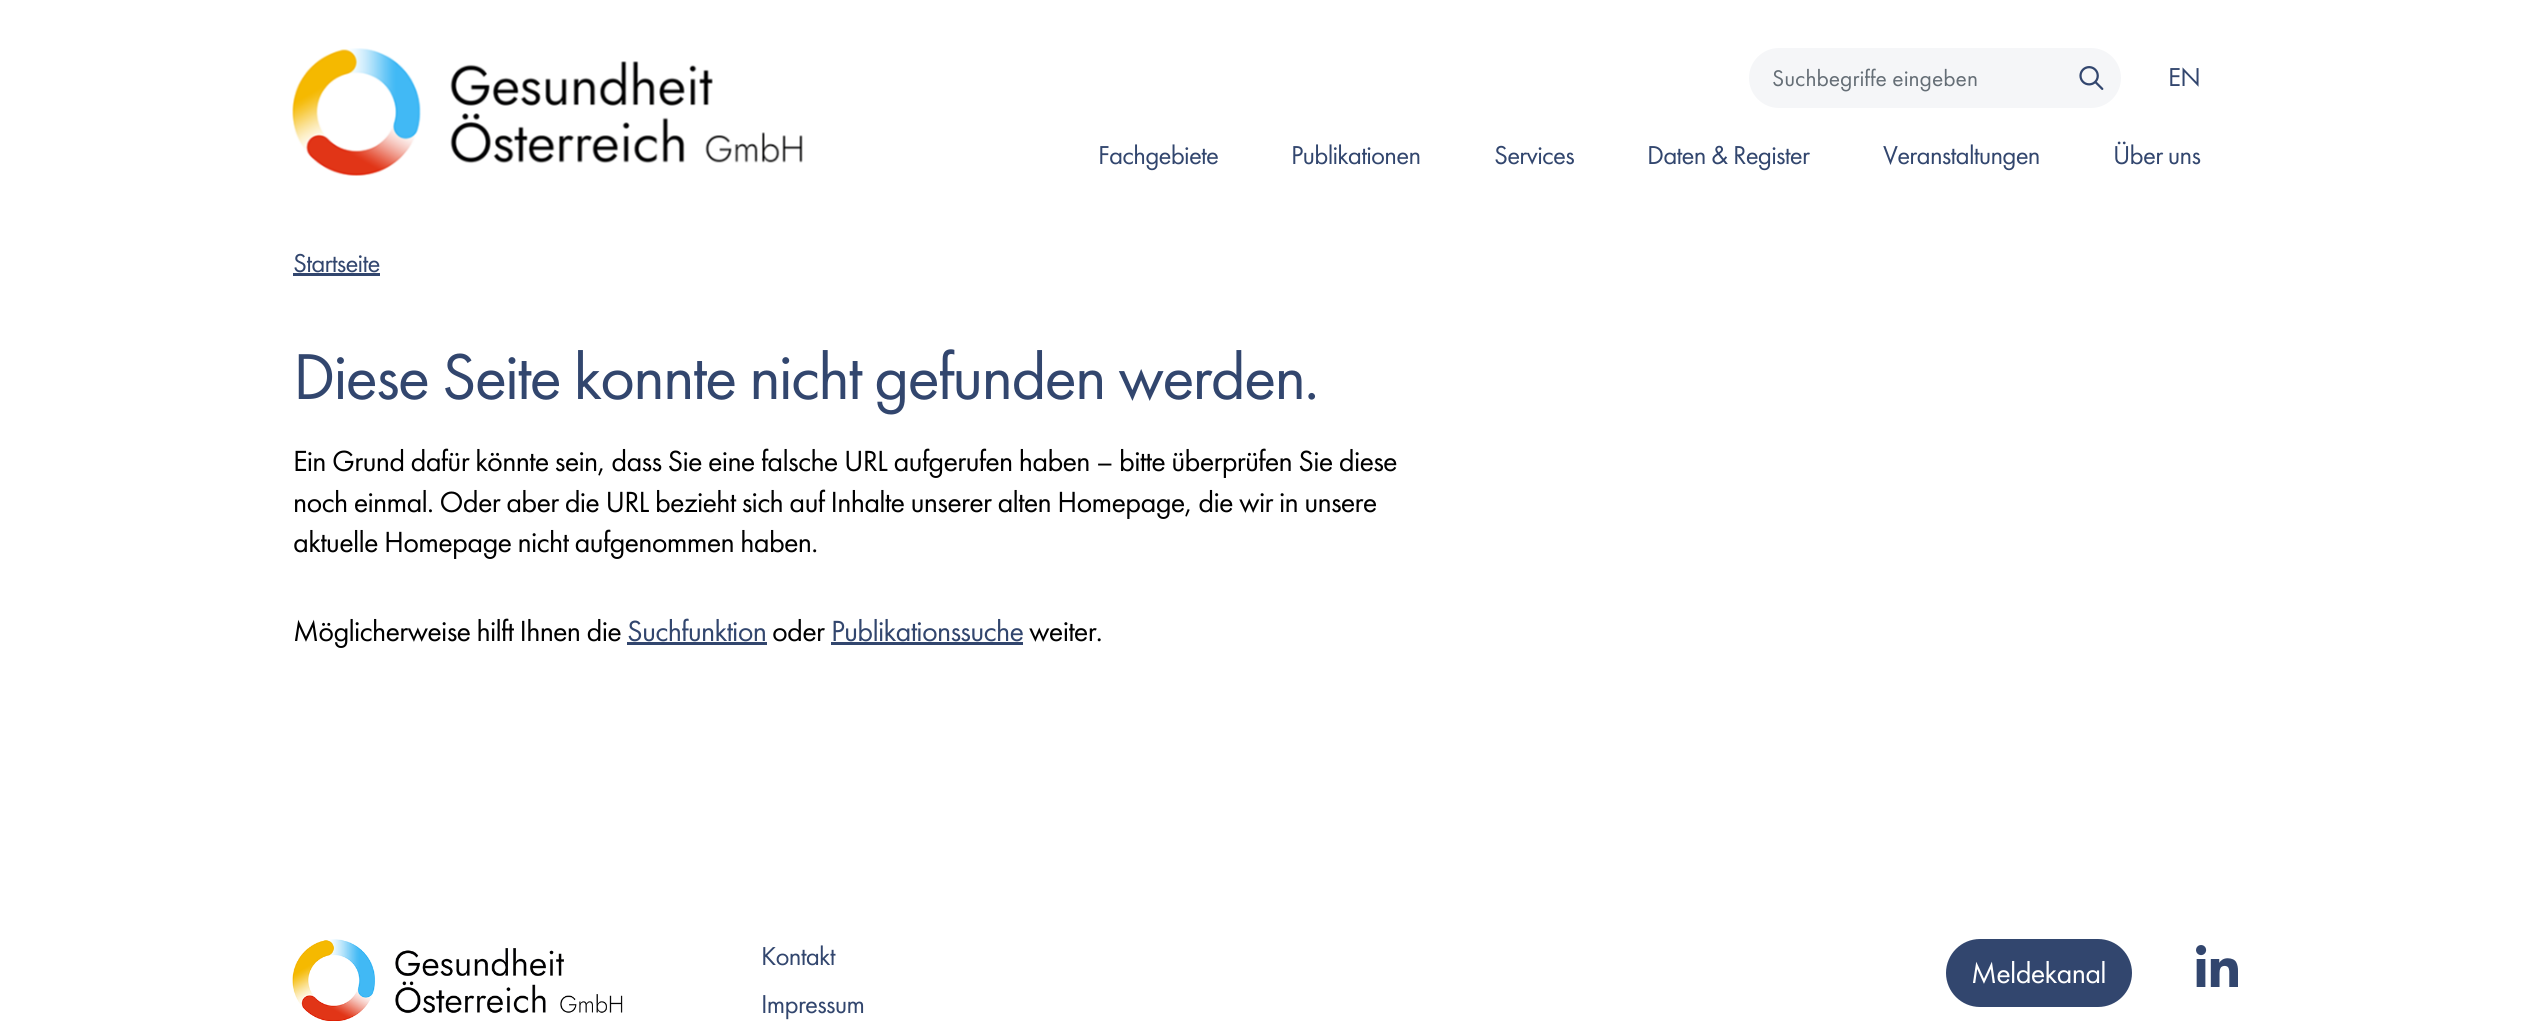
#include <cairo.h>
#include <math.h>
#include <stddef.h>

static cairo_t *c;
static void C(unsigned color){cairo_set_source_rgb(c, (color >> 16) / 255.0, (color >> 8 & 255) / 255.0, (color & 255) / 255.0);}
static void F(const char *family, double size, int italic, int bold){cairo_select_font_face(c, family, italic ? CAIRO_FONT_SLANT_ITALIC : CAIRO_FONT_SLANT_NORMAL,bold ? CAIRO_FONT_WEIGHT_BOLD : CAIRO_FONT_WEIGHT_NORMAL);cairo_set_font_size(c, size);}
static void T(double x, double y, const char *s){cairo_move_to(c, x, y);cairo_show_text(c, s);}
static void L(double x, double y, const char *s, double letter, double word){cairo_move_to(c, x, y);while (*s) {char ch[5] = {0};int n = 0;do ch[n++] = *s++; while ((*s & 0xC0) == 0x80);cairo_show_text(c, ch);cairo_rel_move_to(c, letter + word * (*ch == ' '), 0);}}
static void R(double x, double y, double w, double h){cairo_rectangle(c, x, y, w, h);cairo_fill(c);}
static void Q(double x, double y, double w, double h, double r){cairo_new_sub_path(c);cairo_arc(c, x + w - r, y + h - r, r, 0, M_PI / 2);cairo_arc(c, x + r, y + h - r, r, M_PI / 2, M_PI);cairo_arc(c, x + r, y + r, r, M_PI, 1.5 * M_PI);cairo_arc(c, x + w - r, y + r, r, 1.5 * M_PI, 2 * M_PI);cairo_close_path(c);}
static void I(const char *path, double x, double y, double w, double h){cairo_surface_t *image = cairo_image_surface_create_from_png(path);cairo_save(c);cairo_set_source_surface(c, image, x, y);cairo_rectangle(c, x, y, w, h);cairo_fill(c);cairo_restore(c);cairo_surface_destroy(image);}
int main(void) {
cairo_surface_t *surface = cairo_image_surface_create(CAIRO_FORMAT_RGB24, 2529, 1021);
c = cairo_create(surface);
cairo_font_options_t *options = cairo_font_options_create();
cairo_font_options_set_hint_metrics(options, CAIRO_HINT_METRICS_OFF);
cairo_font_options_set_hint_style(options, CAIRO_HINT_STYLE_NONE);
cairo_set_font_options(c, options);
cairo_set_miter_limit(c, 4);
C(0xffffff);
cairo_paint(c);
I("1.png",292,48,511,128);
C(0xf5f6f8);
Q(1749,48,372,60,30);
cairo_fill(c);
F("Futura PT",21,0,0);
C(0x656e76);
T(1772,86,"Suchbegriffe eingeben");
I("2.png",2079,66,25,24);
F("Futura PT",24,0,0);
C(0x32466e);
L(2168,86,"EN",-.75,0);
L(1098,164,"Fachgebiete",-.75,0);
L(1291,164,"Publikationen",-.75,0);
L(1494,164,"Services",-.75,0);
L(1647,164,"Daten & Register",-.75,0);
L(1883,164,"Veranstaltungen",-.75,0);
L(2113,164,"Über uns",-.75,0);
L(293,272,"Startseite",-.75,0);
R(293,273,87,3);
F("Futura PT",60,0,0);
L(293,399,"Diese Seite konnte nicht gefunden werden.",-1.9,0);
F("Futura PT",27,0,0);
C(0x000000);
L(293,471,"Ein Grund dafür könnte sein, dass Sie eine falsche URL aufgerufen haben – bitte überprüfen Sie diese",-.75,0);
L(293,512,"noch einmal. Oder aber die URL bezieht sich auf Inhalte unserer alten Homepage, die wir in unsere",-.75,0);
L(293,552,"aktuelle Homepage nicht aufgenommen haben.",-.75,0);
L(293,641,"Möglicherweise hilft Ihnen die",-.75,0);
C(0x32466e);
L(627,641,"Suchfunktion",-.75,0);
R(627,642,140,3);
C(0x000000);
L(772,641,"oder",-.75,0);
C(0x32466e);
L(831,641,"Publikationssuche",-.75,0);
R(831,642,192,3);
C(0x000000);
L(1029,641,"weiter.",-.75,0);
I("3.png",292,939,331,82);
F("Futura PT",24,0,0);
C(0x32466e);
L(761,965,"Kontakt",-.75,0);
L(761,1013,"Impressum",-.75,0);
Q(1947,940,184,66,33);
cairo_fill_preserve(c);
cairo_stroke(c);
F("Futura PT",27,0,0);
C(0xffffff);
L(1971,983,"Meldekanal",-.75,0);
I("4.png",2196,945,42,42);
cairo_surface_write_to_png(surface, "o.png");
cairo_font_options_destroy(options);
cairo_destroy(c);
cairo_surface_destroy(surface);
return 0;
}
